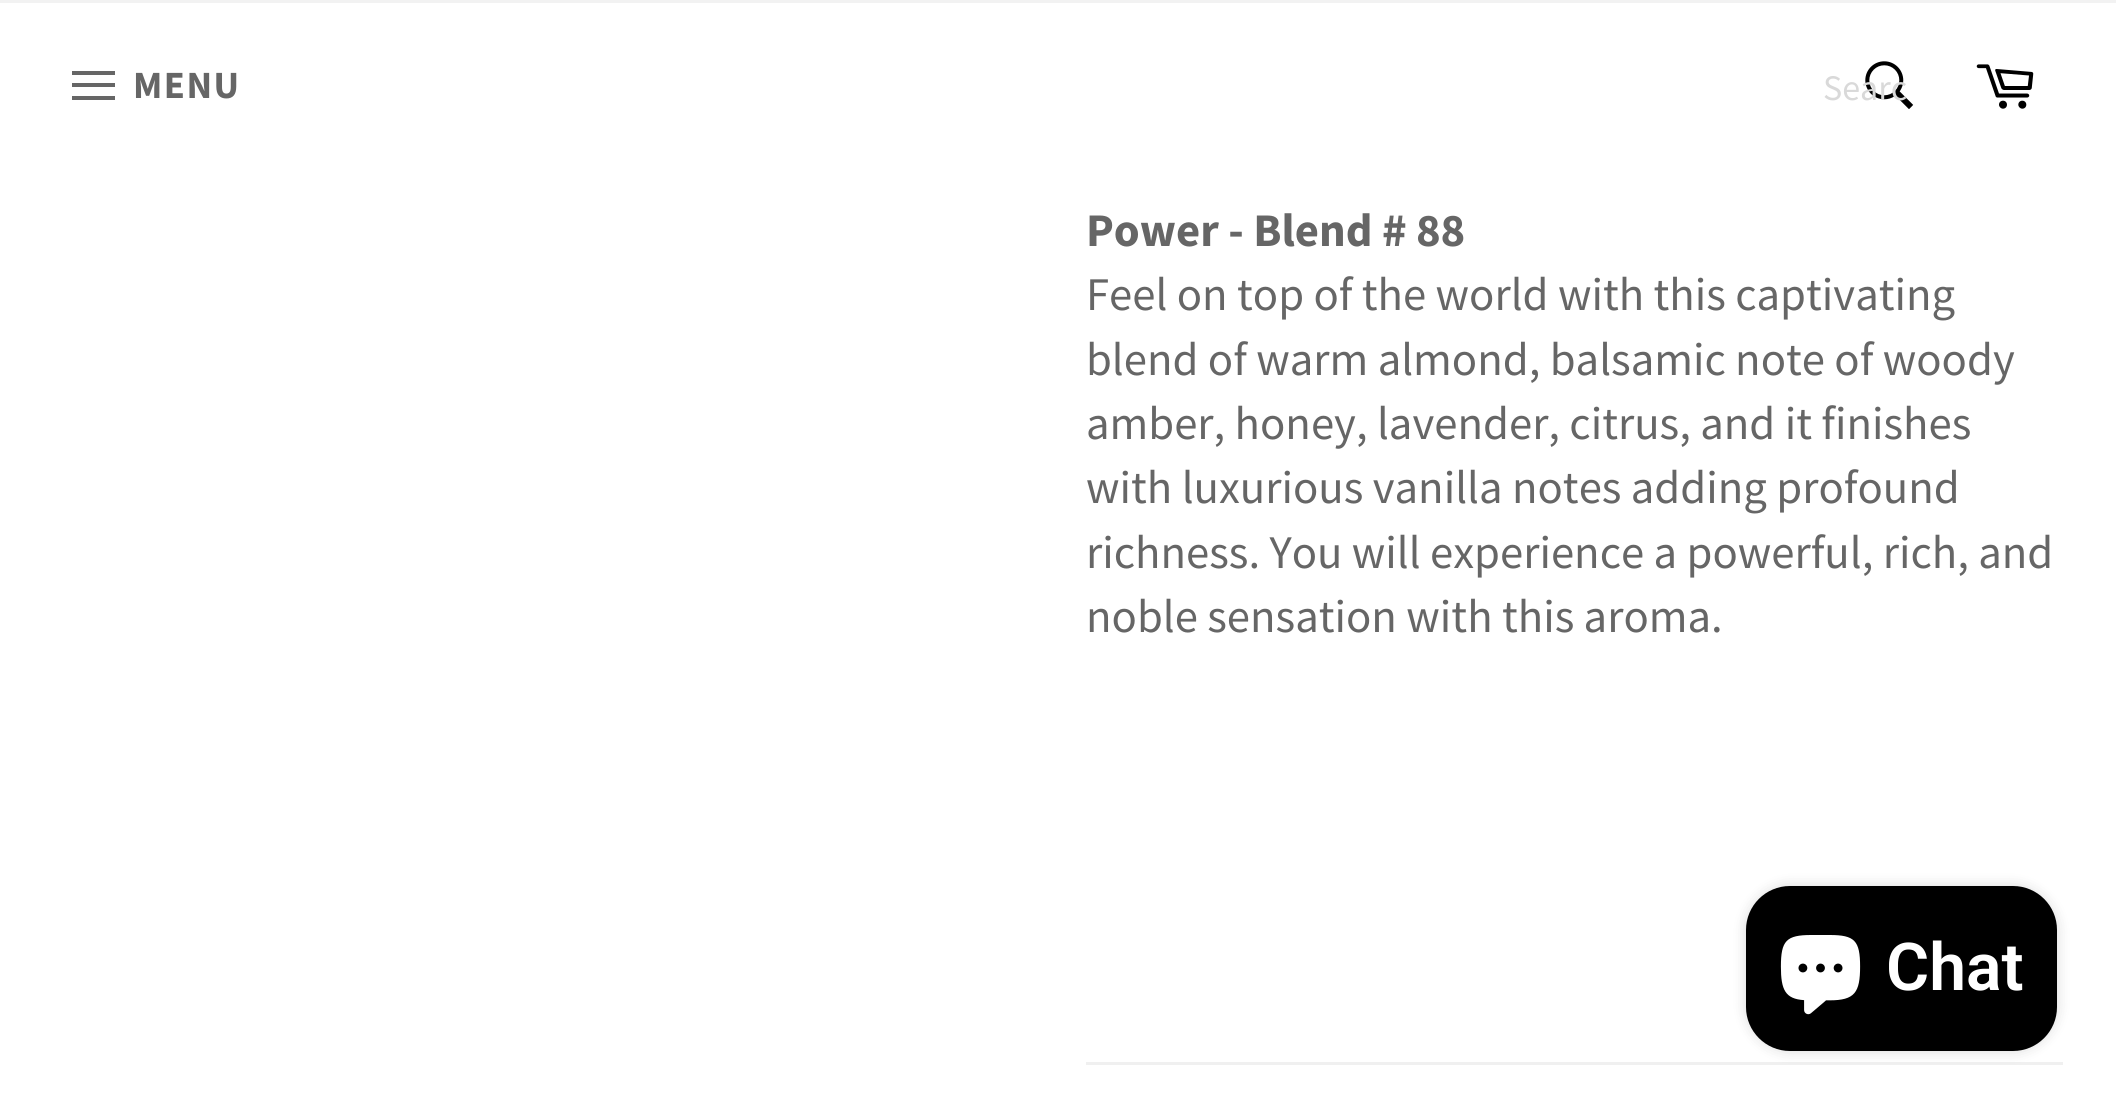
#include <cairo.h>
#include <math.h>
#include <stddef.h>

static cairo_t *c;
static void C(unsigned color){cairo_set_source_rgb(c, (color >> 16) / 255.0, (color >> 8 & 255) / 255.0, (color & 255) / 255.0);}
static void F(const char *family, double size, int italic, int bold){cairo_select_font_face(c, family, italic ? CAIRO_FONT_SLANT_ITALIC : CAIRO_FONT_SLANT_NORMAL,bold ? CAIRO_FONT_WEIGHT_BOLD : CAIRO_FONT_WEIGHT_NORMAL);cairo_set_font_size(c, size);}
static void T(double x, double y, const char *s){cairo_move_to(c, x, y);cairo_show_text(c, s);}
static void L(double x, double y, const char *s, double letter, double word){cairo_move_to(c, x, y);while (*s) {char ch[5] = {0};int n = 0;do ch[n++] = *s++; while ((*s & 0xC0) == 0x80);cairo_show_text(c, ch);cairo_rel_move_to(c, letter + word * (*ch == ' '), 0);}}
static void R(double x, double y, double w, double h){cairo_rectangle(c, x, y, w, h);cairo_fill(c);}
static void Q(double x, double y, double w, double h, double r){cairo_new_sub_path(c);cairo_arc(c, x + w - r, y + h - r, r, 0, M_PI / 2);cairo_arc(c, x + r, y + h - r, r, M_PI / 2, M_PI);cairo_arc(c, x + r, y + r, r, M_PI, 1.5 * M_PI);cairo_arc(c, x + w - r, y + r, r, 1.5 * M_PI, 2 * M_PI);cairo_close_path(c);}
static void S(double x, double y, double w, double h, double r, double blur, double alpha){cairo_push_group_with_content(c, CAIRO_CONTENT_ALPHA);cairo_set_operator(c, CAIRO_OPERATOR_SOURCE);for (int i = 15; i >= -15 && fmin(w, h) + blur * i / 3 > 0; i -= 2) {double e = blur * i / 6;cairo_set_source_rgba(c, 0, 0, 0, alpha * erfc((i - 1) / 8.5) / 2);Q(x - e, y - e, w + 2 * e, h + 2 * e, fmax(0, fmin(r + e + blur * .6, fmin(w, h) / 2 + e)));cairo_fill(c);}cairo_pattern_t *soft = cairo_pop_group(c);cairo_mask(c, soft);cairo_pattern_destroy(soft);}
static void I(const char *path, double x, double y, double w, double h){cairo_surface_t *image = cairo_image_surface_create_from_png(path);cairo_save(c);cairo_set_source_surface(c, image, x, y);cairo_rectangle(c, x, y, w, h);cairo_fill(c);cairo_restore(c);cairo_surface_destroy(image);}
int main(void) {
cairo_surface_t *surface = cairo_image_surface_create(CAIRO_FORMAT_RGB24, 2116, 1108);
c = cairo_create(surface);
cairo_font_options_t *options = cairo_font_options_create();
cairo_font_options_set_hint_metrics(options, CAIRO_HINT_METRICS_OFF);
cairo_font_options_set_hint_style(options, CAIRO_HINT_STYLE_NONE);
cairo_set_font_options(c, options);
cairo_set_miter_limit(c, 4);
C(0xffffff);
cairo_paint(c);
C(0xf2f2f2);
R(0,0,2116,3);
C(0x666666);
cairo_new_path(c);
cairo_move_to(c,72,83);
cairo_line_to(c,115,83);
cairo_line_to(c,115,87);
cairo_line_to(c,72,87);
cairo_close_path(c);
cairo_move_to(c,72,71);
cairo_line_to(c,115,71);
cairo_line_to(c,115,75);
cairo_line_to(c,72,75);
cairo_close_path(c);
cairo_move_to(c,72,96);
cairo_line_to(c,115,96);
cairo_line_to(c,115,100);
cairo_line_to(c,72,100);
cairo_close_path(c);
cairo_fill(c);
F("Source Sans Pro",38.5,0,1);
L(133,98,"MENU",1.5,0);
I("1.png",1865,61,49,48);
F("Source Sans Pro",36,0,0);
C(0xd9d9d9);
T(1823,100,"Searc");
I("2.png",1976,64,58,45);
F("Source Sans Pro",46.75,0,1);
C(0x666666);
T(1086,246,"Power - Blend # 88");
F("Source Sans Pro",46.75,0,0);
T(1086,310,"Feel on top of the world with this captivating");
T(1086,375,"blend of warm almond, balsamic note of woody");
T(1086,439,"amber, honey, lavender, citrus, and it finishes");
T(1086,503,"with luxurious vanilla notes adding profound");
T(1086,568,"richness. You will experience a powerful, rich, and");
T(1086,632,"noble sensation with this aroma.");
C(0xf0f0f0);
R(1086,1062,977,3);
C(0x000000);
S(1746,886,311,165,44,7,.15);
C(0x000000);
Q(1746,886,311,165,44);
cairo_fill(c);
I("3.png",1780,935,81,80);
F("Roboto SemiBold",66,0,0);
C(0xffffff);
T(1886,990,"Chat");
cairo_surface_write_to_png(surface, "o.png");
cairo_font_options_destroy(options);
cairo_destroy(c);
cairo_surface_destroy(surface);
return 0;
}
